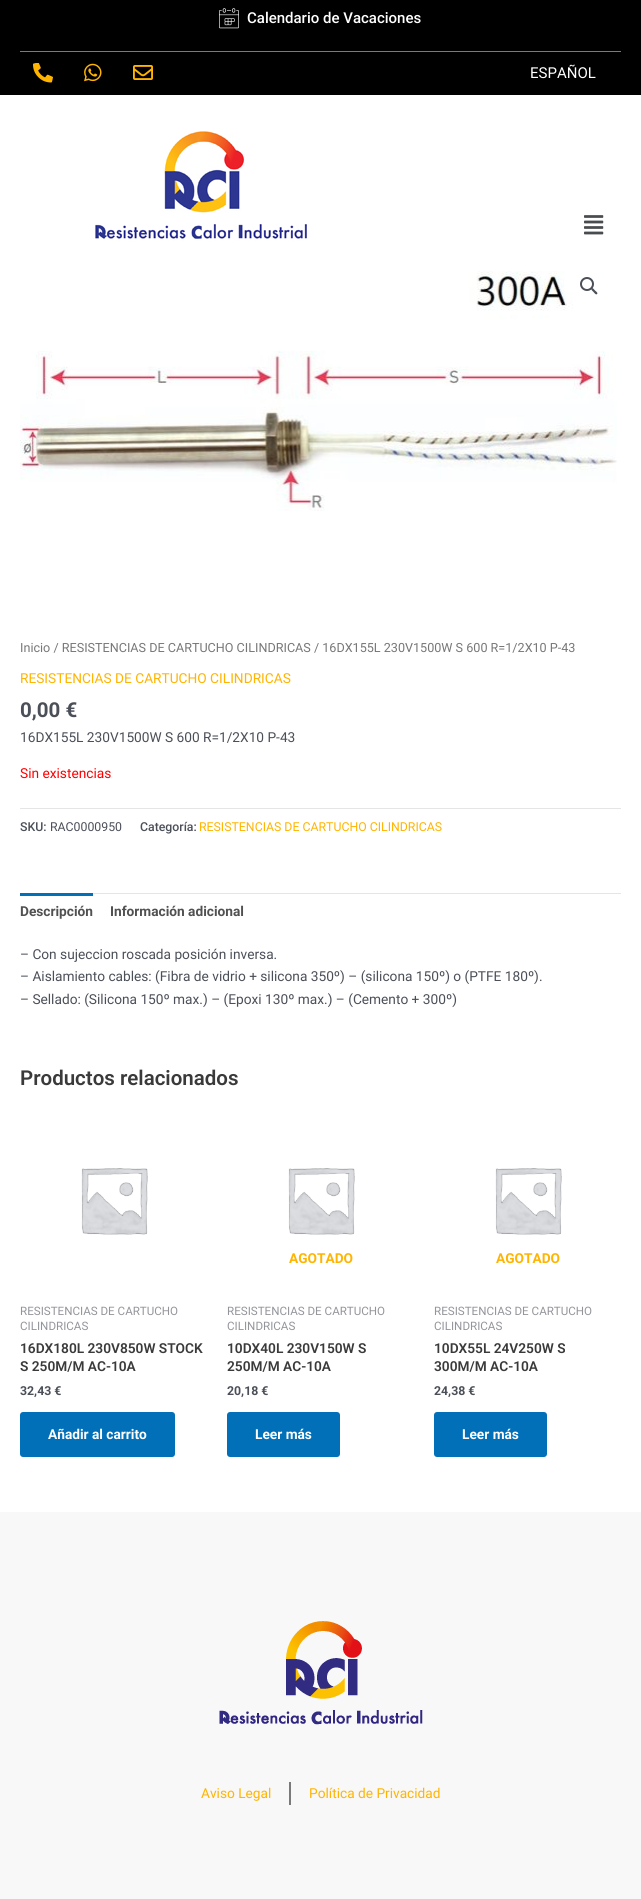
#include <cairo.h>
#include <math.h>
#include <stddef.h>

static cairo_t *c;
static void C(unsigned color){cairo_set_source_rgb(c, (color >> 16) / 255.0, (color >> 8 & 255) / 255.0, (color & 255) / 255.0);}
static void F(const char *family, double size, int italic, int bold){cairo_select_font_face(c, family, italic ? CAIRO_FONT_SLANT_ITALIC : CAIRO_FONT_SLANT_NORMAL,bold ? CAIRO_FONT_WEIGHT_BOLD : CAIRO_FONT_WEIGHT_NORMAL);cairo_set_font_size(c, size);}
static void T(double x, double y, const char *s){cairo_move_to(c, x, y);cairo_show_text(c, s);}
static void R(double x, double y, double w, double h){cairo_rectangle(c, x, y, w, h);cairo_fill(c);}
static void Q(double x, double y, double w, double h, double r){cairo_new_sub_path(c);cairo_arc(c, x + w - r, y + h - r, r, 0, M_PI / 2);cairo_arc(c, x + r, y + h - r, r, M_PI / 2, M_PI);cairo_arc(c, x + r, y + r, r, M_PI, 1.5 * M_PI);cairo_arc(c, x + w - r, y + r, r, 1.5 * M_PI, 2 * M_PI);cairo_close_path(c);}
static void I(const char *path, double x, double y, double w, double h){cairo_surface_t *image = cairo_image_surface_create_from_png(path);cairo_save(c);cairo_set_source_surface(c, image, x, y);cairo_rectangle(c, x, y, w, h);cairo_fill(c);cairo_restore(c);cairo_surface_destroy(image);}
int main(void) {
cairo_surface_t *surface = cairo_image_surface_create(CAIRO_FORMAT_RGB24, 641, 1899);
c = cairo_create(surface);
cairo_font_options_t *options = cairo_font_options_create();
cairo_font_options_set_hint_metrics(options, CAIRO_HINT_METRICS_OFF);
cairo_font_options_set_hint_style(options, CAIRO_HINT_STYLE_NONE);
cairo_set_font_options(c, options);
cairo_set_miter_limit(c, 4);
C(0xffffff);
cairo_paint(c);
C(0x000000);
R(0,0,641,95);
C(0x7a7a7a);
R(20,51,601,1);
I("1.png",219,8,20,21);
F("Roboto Medium",15,0,0);
C(0xffffff);
T(247,23,"Calendario de Vacaciones");
I("2.png",33,63,20,20);
I("3.png",84,63,18,19);
I("4.png",133,65,20,15);
F("Roboto",15,0,0);
T(530,78,"ESPAÑOL");
I("5.png",95,131,212,111);
I("6.png",584,215,20,20);
I("7.png",20,271,597,240);
cairo_arc(c,587,284,6,0,2 * M_PI);
C(0x4b4f58);
cairo_stroke(c);
cairo_new_path(c);
cairo_move_to(c,591.5,288.5);
cairo_curve_to(c,592.5,287,594.5,290,595,290.5);
cairo_curve_to(c,595.5,291,598.5,293,597,294);
cairo_curve_to(c,596,295.5,594,292.5,593.5,292);
cairo_curve_to(c,593,291.5,590.5,289.5,591.5,288.5);
cairo_close_path(c);
cairo_fill(c);
F("Roboto",12.6,0,0);
C(0x777777);
T(20,652,"Inicio / RESISTENCIAS DE CARTUCHO CILINDRICAS / 16DX155L 230V1500W S 600 R=1/2X10 P-43");
F("Roboto",13.7,0,0);
C(0xffb401);
T(20,683,"RESISTENCIAS DE CARTUCHO CILINDRICAS");
F("Roboto",20.5,0,1);
C(0x4b4f58);
T(20,717,"0,00 €");
F("Roboto",13.7,0,0);
T(20,742,"16DX155L 230V1500W S 600 R=1/2X10 P-43");
C(0xff0000);
T(20,778,"Sin existencias");
C(0xe5e5e5);
R(20,808,601,1);
F("Roboto Medium",12.3,0,0);
C(0x4b4f58);
T(20,831,"SKU:");
F("Roboto",12.3,0,0);
T(50,831,"RAC0000950");
F("Roboto Medium",12.3,0,0);
T(140,831,"Categoría:");
F("Roboto",12.3,0,0);
C(0xffb401);
T(199,831,"RESISTENCIAS DE CARTUCHO CILINDRICAS");
C(0xe5e5e5);
R(93,893,528,1);
C(0x0170b9);
R(20,893,73,3);
F("Roboto",13.7,0,1);
C(0x515151);
T(20,916,"Descripción");
T(110,916,"Información adicional");
F("Roboto",13.7,0,0);
C(0x4b4f58);
T(20,959,"– Con sujeccion roscada posición inversa.");
T(20,981,"– Aislamiento cables: (Fibra de vidrio + silicona 350º) – (silicona 150º) o (PTFE 180º).");
T(20,1004,"– Sellado: (Silicona 150º max.) – (Epoxi 130º max.) – (Cemento + 300º)");
F("Roboto SemiBold",20.5,0,0);
C(0x3a3a3a);
T(20,1085,"Productos relacionados");
I("8.png",81,1168,67,67);
F("Roboto",11.6,0,0);
C(0x93959b);
T(20,1315,"RESISTENCIAS DE CARTUCHO");
T(20,1330,"CILINDRICAS");
F("Roboto SemiBold",13.7,0,0);
C(0x3a3a3a);
T(20,1353,"16DX180L 230V850W STOCK");
T(20,1371,"S 250M/M AC-10A");
F("Roboto",12.3,0,1);
C(0x4b4f58);
T(20,1395,"32,43 €");
C(0x0170b9);
Q(20,1412,155,45,3);
cairo_fill(c);
F("Roboto",13.7,0,1);
C(0xffffff);
T(48,1439,"Añadir al carrito");
I("9.png",288,1168,67,67);
C(0xffb401);
T(289,1263,"AGOTADO");
F("Roboto",11.6,0,0);
C(0x93959b);
T(227,1315,"RESISTENCIAS DE CARTUCHO");
T(227,1330,"CILINDRICAS");
F("Roboto SemiBold",13.7,0,0);
C(0x3a3a3a);
T(227,1353,"10DX40L 230V150W S");
T(227,1371,"250M/M AC-10A");
F("Roboto",12.3,0,1);
C(0x4b4f58);
T(227,1395,"20,18 €");
C(0x0170b9);
Q(227,1412,113,45,3);
cairo_fill(c);
F("Roboto",13.7,0,1);
C(0xffffff);
T(255,1439,"Leer más");
I("8.png",495,1168,67,67);
C(0xffb401);
T(496,1263,"AGOTADO");
F("Roboto",11.6,0,0);
C(0x93959b);
T(434,1315,"RESISTENCIAS DE CARTUCHO");
T(434,1330,"CILINDRICAS");
F("Roboto SemiBold",13.7,0,0);
C(0x3a3a3a);
T(434,1353,"10DX55L 24V250W S");
T(434,1371,"300M/M AC-10A");
F("Roboto",12.3,0,1);
C(0x4b4f58);
T(434,1395,"24,38 €");
C(0x0170b9);
Q(434,1412,113,45,3);
cairo_fill(c);
F("Roboto",13.7,0,1);
C(0xffffff);
T(462,1439,"Leer más");
C(0xf8f8f8);
R(0,1512,641,387);
I("10.png",219,1621,204,104);
F("Roboto",13.7,0,0);
C(0xffb401);
T(201,1798,"Aviso Legal");
C(0x7a7a7a);
R(289,1782,2,23);
C(0xffb401);
T(309,1798,"Política de Privacidad");
cairo_surface_write_to_png(surface, "o.png");
cairo_font_options_destroy(options);
cairo_destroy(c);
cairo_surface_destroy(surface);
return 0;
}
